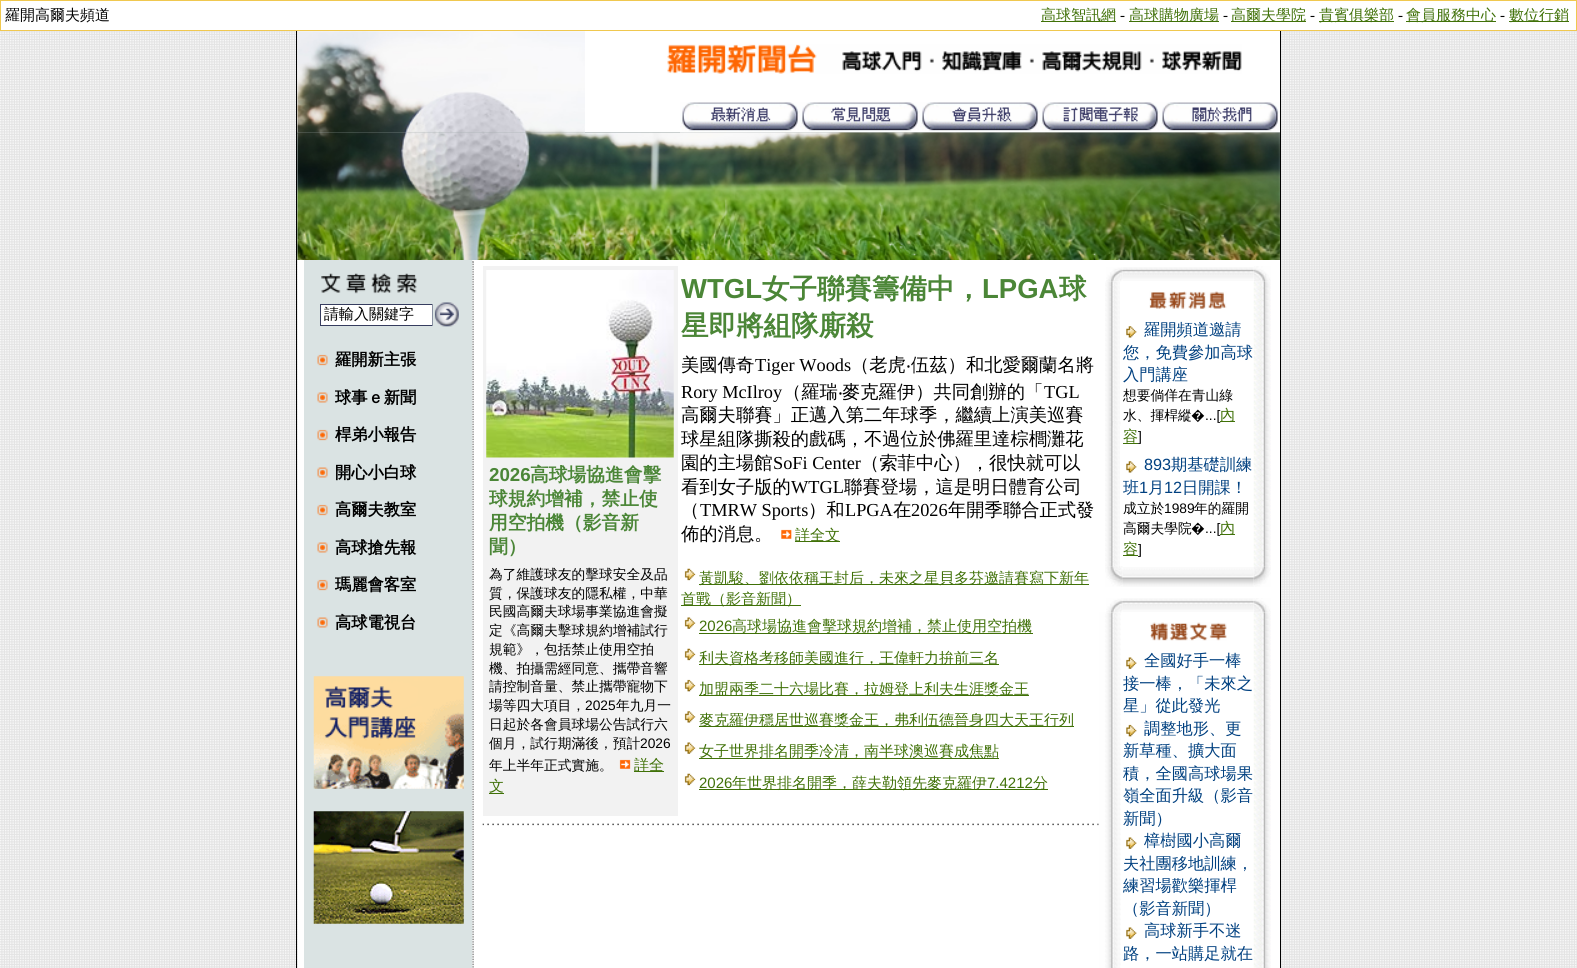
#include <cairo.h>
#include <math.h>
#include <stddef.h>

static cairo_t *c;
static void C(unsigned color){cairo_set_source_rgb(c, (color >> 16) / 255.0, (color >> 8 & 255) / 255.0, (color & 255) / 255.0);}
static void F(const char *family, double size, int italic, int bold){cairo_select_font_face(c, family, italic ? CAIRO_FONT_SLANT_ITALIC : CAIRO_FONT_SLANT_NORMAL,bold ? CAIRO_FONT_WEIGHT_BOLD : CAIRO_FONT_WEIGHT_NORMAL);cairo_set_font_size(c, size);}
static void T(double x, double y, const char *s){cairo_move_to(c, x, y);cairo_show_text(c, s);}
static void R(double x, double y, double w, double h){cairo_rectangle(c, x, y, w, h);cairo_fill(c);}
static void I(const char *path, double x, double y, double w, double h){cairo_surface_t *image = cairo_image_surface_create_from_png(path);cairo_save(c);cairo_set_source_surface(c, image, x, y);cairo_rectangle(c, x, y, w, h);cairo_fill(c);cairo_restore(c);cairo_surface_destroy(image);}
int main(void) {
cairo_surface_t *surface = cairo_image_surface_create(CAIRO_FORMAT_RGB24, 1577, 968);
c = cairo_create(surface);
cairo_font_options_t *options = cairo_font_options_create();
cairo_font_options_set_hint_metrics(options, CAIRO_HINT_METRICS_OFF);
cairo_font_options_set_hint_style(options, CAIRO_HINT_STYLE_NONE);
cairo_set_font_options(c, options);
cairo_set_miter_limit(c, 4);
C(0xffffff);
cairo_paint(c);
I("1.png",0,31,1577,937);
C(0xf0c84f);
R(0,0,1577,31);
C(0xffffff);
R(1,1,1575,29);
F("WenQuanYi Zen Hei Medium",15,0,0);
C(0x000000);
T(5,20,"羅開高爾夫頻道");
C(0x407108);
R(1041,21,75,1);
T(1041,20,"高球智訊網");
F("Liberation Serif",15,0,0);
C(0x000000);
T(1120,20,"-");
C(0x407108);
R(1129,21,90,1);
F("WenQuanYi Zen Hei Medium",15,0,0);
T(1129,20,"高球購物廣場");
F("Liberation Serif",15,0,0);
C(0x000000);
T(1223,20,"-");
C(0x407108);
R(1231,21,75,1);
F("WenQuanYi Zen Hei Medium",15,0,0);
T(1231,20,"高爾夫學院");
F("Liberation Serif",15,0,0);
C(0x000000);
T(1310,20,"-");
C(0x407108);
R(1319,21,75,1);
F("WenQuanYi Zen Hei Medium",15,0,0);
T(1319,20,"貴賓俱樂部");
F("Liberation Serif",15,0,0);
C(0x000000);
T(1398,20,"-");
C(0x407108);
R(1406,21,90,1);
F("WenQuanYi Zen Hei Medium",15,0,0);
T(1406,20,"會員服務中心");
F("Liberation Serif",15,0,0);
C(0x000000);
T(1500,20,"-");
C(0x407108);
R(1509,21,60,1);
F("WenQuanYi Zen Hei Medium",15,0,0);
T(1509,20,"數位行銷");
C(0x000000);
R(296,31,1,937);
C(0xffffff);
R(298,31,982,937);
I("9.png",297,132,983,128);
I("2.png",297,31,288,102);
I("3.png",667,44,575,30);
I("4.png",680,102,120,31);
I("5.png",800,102,120,31);
I("6.png",920,102,120,31);
I("7.png",1040,102,120,31);
I("8.png",1160,102,120,31);
I("10.png",297,132,983,128);
C(0xdae3e3);
R(304,260,169,708);
I("11.png",321,273,96,21);
C(0xffffff);
cairo_rectangle(c,320.5,304.5,112,21);
cairo_fill_preserve(c);
C(0x363d5f);
cairo_set_line_width(c,1);
cairo_stroke(c);
C(0x000000);
T(324,319,"請輸入關鍵字");
I("12.png",432,302,27,25);
I("13.png",317,354,11,12);
F("WenQuanYi Zen Hei",16.25,0,1);
T(335,365,"羅開新主張");
I("14.png",317,392,11,11);
T(335,403,"球事ｅ新聞");
I("13.png",317,429,11,12);
T(335,440,"桿弟小報告");
I("14.png",317,467,11,11);
T(335,478,"開心小白球");
I("13.png",317,504,11,12);
T(335,515,"高爾夫教室");
I("14.png",317,542,11,11);
T(335,553,"高球搶先報");
I("13.png",317,579,11,12);
T(335,590,"瑪麗會客室");
I("14.png",317,617,11,11);
T(335,628,"高球電視台");
I("15.png",313,676,151,113);
I("16.png",313,811,151,113);
I("17.png",472,260,2,708);
I("18.png",472,260,2,3);
C(0xf2f2f2);
R(483,266,195,550);
I("19.png",486,270,188,188);
F("Liberation Sans",18.75,0,1);
C(0x4b8637);
T(489,481,"2026");
F("WenQuanYi Zen Hei",18.75,0,1);
T(530,481,"高球場協進會擊");
T(489,505,"球規約增補，禁止使");
T(489,529,"用空拍機（影音新");
T(489,553,"聞）");
F("WenQuanYi Zen Hei Medium",13.75,0,0);
C(0x000000);
T(489,579,"為了維護球友的擊球安全及品");
T(489,598,"質，保護球友的隱私權，中華");
T(489,616,"民國高爾夫球場事業協進會擬");
T(489,635,"定《高爾夫擊球規約增補試行");
T(489,654,"規範》，包括禁止使用空拍");
T(489,673,"機、拍攝需經同意、攜帶音響");
T(489,691,"請控制音量、禁止攜帶寵物下");
T(489,710,"場等四大項目，");
F("Liberation Sans",13.75,0,0);
T(585,710,"2025");
F("WenQuanYi Zen Hei Medium",13.75,0,0);
T(616,710,"年九月一");
T(489,729,"日起於各會員球場公告試行六");
T(489,748,"個月，試行期滿後，預計");
F("Liberation Sans",13.75,0,0);
T(640,748,"2026");
F("WenQuanYi Zen Hei Medium",13.75,0,0);
T(489,770,"年上半年正式實施。");
I("20.png",619,759,12,10);
C(0x407108);
R(634,771,30,1);
F("WenQuanYi Zen Hei Medium",15,0,0);
T(634,770,"詳全");
T(489,791,"文");
R(489,793,15,1);
F("Liberation Sans",27.5,0,1);
C(0x4b8637);
T(681,298,"WTGL");
F("WenQuanYi Zen Hei",27.5,0,1);
T(762,298,"女子聯賽籌備中，");
F("Liberation Sans",27.5,0,1);
T(982,298,"LPGA");
F("WenQuanYi Zen Hei",27.5,0,1);
T(1059,298,"球");
T(681,335,"星即將組隊廝殺");
F("WenQuanYi Zen Hei Medium",18.3,0,0);
C(0x000000);
T(681,371,"美國傳奇");
F("Liberation Serif",18.3,0,0);
T(755,371,"Tiger Woods");
F("WenQuanYi Zen Hei Medium",18.3,0,0);
T(851,371,"（老虎");
F("Noto Sans",18.3,0,0);
T(906,371,"‧");
F("WenQuanYi Zen Hei Medium",18.3,0,0);
T(911,371,"伍茲）和北愛爾蘭名將");
F("Liberation Serif",18.3,0,0);
T(681,398,"Rory McIlroy");
F("WenQuanYi Zen Hei Medium",18.3,0,0);
T(783,398,"（羅瑞");
F("Noto Sans",18.3,0,0);
T(838,398,"‧");
F("WenQuanYi Zen Hei Medium",18.3,0,0);
T(842,398,"麥克羅伊）共同創辦的「");
F("Liberation Serif",18.3,0,0);
T(1044,398,"TGL");
F("WenQuanYi Zen Hei Medium",18.3,0,0);
T(681,421,"高爾夫聯賽」正邁入第二年球季，繼續上演美巡賽");
T(681,445,"球星組隊撕殺的戲碼，不過位於佛羅里達棕櫚灘花");
T(681,469,"園的主場館");
F("Liberation Serif",18.3,0,0);
T(773,469,"SoFi Center");
F("WenQuanYi Zen Hei Medium",18.3,0,0);
T(861,469,"（索菲中心），很快就可以");
T(681,493,"看到女子版的");
F("Liberation Serif",18.3,0,0);
T(791,493,"WTGL");
F("WenQuanYi Zen Hei Medium",18.3,0,0);
T(844,493,"聯賽登場，這是明日體育公司");
T(681,516,"（");
F("Liberation Serif",18.3,0,0);
T(700,516,"TMRW Sports");
F("WenQuanYi Zen Hei Medium",18.3,0,0);
T(808,516,"）和");
F("Liberation Serif",18.3,0,0);
T(845,516,"LPGA");
F("WenQuanYi Zen Hei Medium",18.3,0,0);
T(893,516,"在");
F("Liberation Serif",18.3,0,0);
T(911,516,"2026");
F("WenQuanYi Zen Hei Medium",18.3,0,0);
T(948,516,"年開季聯合正式發");
T(681,540,"佈的消息。");
I("21.png",781,529,11,10);
C(0x407108);
R(795,541,45,1);
F("WenQuanYi Zen Hei Medium",15,0,0);
T(795,540,"詳全文");
I("22.png",684,568,12,13);
R(699,584,390,1);
T(699,583,"黃凱駿、劉依依稱王封后，未來之星貝多芬邀請賽寫下新年");
R(681,605,120,1);
T(681,604,"首戰（影音新聞）");
I("23.png",684,617,12,12);
F("Liberation Sans",15,0,0);
T(699,631,"2026");
R(699,633,334,1);
F("WenQuanYi Zen Hei Medium",15,0,0);
T(732,631,"高球場協進會擊球規約增補，禁止使用空拍機");
I("22.png",684,648,12,13);
R(699,664,300,1);
T(699,663,"利夫資格考移師美國進行，王偉軒力拚前三名");
I("24.png",684,679,12,13);
R(699,695,330,1);
T(699,694,"加盟兩季二十六場比賽，拉姆登上利夫生涯獎金王");
I("25.png",684,711,12,12);
R(699,726,375,1);
T(699,725,"麥克羅伊穩居世巡賽獎金王，弗利伍德晉身四大天王行列");
I("23.png",684,742,12,12);
R(699,758,300,1);
T(699,756,"女子世界排名開季冷清，南半球澳巡賽成焦點");
I("22.png",684,773,12,13);
F("Liberation Sans",15,0,0);
T(699,788,"2026");
R(699,789,349,1);
F("WenQuanYi Zen Hei Medium",15,0,0);
T(732,788,"年世界排名開季，薛夫勒領先麥克羅伊");
F("Liberation Sans",15,0,0);
T(987,788,"7.4212");
F("WenQuanYi Zen Hei Medium",15,0,0);
T(1033,788,"分");
I("26.png",482,823,617,3);
I("28.png",1122,267,132,14);
I("30.png",1105,281,15,286);
I("27.png",1106,267,17,15);
C(0xc4c4c4);
R(1122,270,1,1);
I("34.png",1253,281,18,286);
I("29.png",1254,266,17,16);
I("31.png",1112,421,9,5);
I("32.png",1149,291,78,18);
I("33.png",1126,326,11,12);
F("WenQuanYi Zen Hei Medium",16.25,0,0);
C(0x004080);
T(1144,335,"羅開頻道邀請");
T(1123,358,"您，免費參加高球");
T(1123,380,"入門講座");
F("WenQuanYi Zen Hei Medium",13.75,0,0);
C(0x000000);
T(1123,400,"想要倘佯在青山綠");
T(1123,420,"水、揮桿縱");
F("Noto Sans",13.75,0,0);
T(1191,420,"�");
F("Liberation Sans",13.75,0,0);
T(1205,420,"...[");
C(0x407108);
R(1220,421,15,1);
F("WenQuanYi Zen Hei Medium",15,0,0);
T(1220,420,"內");
T(1123,441,"容");
R(1123,443,15,1);
F("Liberation Sans",13.75,0,0);
C(0x000000);
T(1138,441,"]");
I("33.png",1126,461,11,12);
F("Liberation Sans",16.25,0,0);
C(0x004080);
T(1144,470,"893");
F("WenQuanYi Zen Hei Medium",16.25,0,0);
T(1171,470,"期基礎訓練");
T(1123,493,"班");
F("Liberation Sans",16.25,0,0);
T(1139,493,"1");
F("WenQuanYi Zen Hei Medium",16.25,0,0);
T(1148,493,"月");
F("Liberation Sans",16.25,0,0);
T(1164,493,"12");
F("WenQuanYi Zen Hei Medium",16.25,0,0);
T(1182,493,"日開課！");
F("WenQuanYi Zen Hei Medium",13.75,0,0);
C(0x000000);
T(1123,513,"成立於");
F("Liberation Sans",13.75,0,0);
T(1164,513,"1989");
F("WenQuanYi Zen Hei Medium",13.75,0,0);
T(1194,513,"年的羅開");
T(1123,533,"高爾夫學院");
F("Noto Sans",13.75,0,0);
T(1191,533,"�");
F("Liberation Sans",13.75,0,0);
T(1205,533,"...[");
C(0x407108);
R(1220,534,15,1);
F("WenQuanYi Zen Hei Medium",15,0,0);
T(1220,533,"內");
R(1123,555,15,1);
T(1123,554,"容");
F("Liberation Sans",13.75,0,0);
C(0x000000);
T(1138,554,"]");
I("35.png",1254,421,15,7);
I("37.png",1122,567,132,20);
I("36.png",1105,566,18,21);
I("38.png",1122,576,1,8);
I("39.png",1253,566,18,21);
I("41.png",1122,598,132,14);
I("44.png",1098,612,23,356);
I("40.png",1106,598,17,15);
I("42.png",1122,601,1,2);
I("49.png",1253,612,18,356);
I("43.png",1254,598,17,15);
I("45.png",1112,842,1,5);
I("46.png",1150,622,77,19);
I("47.png",1126,657,11,12);
F("WenQuanYi Zen Hei Medium",16.25,0,0);
C(0x004080);
T(1144,666,"全國好手一棒");
T(1123,689,"接一棒，「未來之");
T(1123,711,"星」從此發光");
I("48.png",1126,724,11,13);
T(1144,734,"調整地形、更");
T(1123,756,"新草種、擴大面");
T(1123,779,"積，全國高球場果");
T(1123,801,"嶺全面升級（影音");
T(1123,824,"新聞）");
I("47.png",1126,837,11,12);
T(1144,846,"樟樹國小高爾");
T(1123,869,"夫社團移地訓練，");
T(1123,891,"練習場歡樂揮桿");
T(1123,914,"（影音新聞）");
I("47.png",1126,927,11,12);
T(1144,936,"高球新手不迷");
T(1123,959,"路，一站購足就在");
I("50.png",1254,843,14,6);
C(0x000000);
R(1280,31,1,937);
cairo_surface_write_to_png(surface, "o.png");
cairo_font_options_destroy(options);
cairo_destroy(c);
cairo_surface_destroy(surface);
return 0;
}
